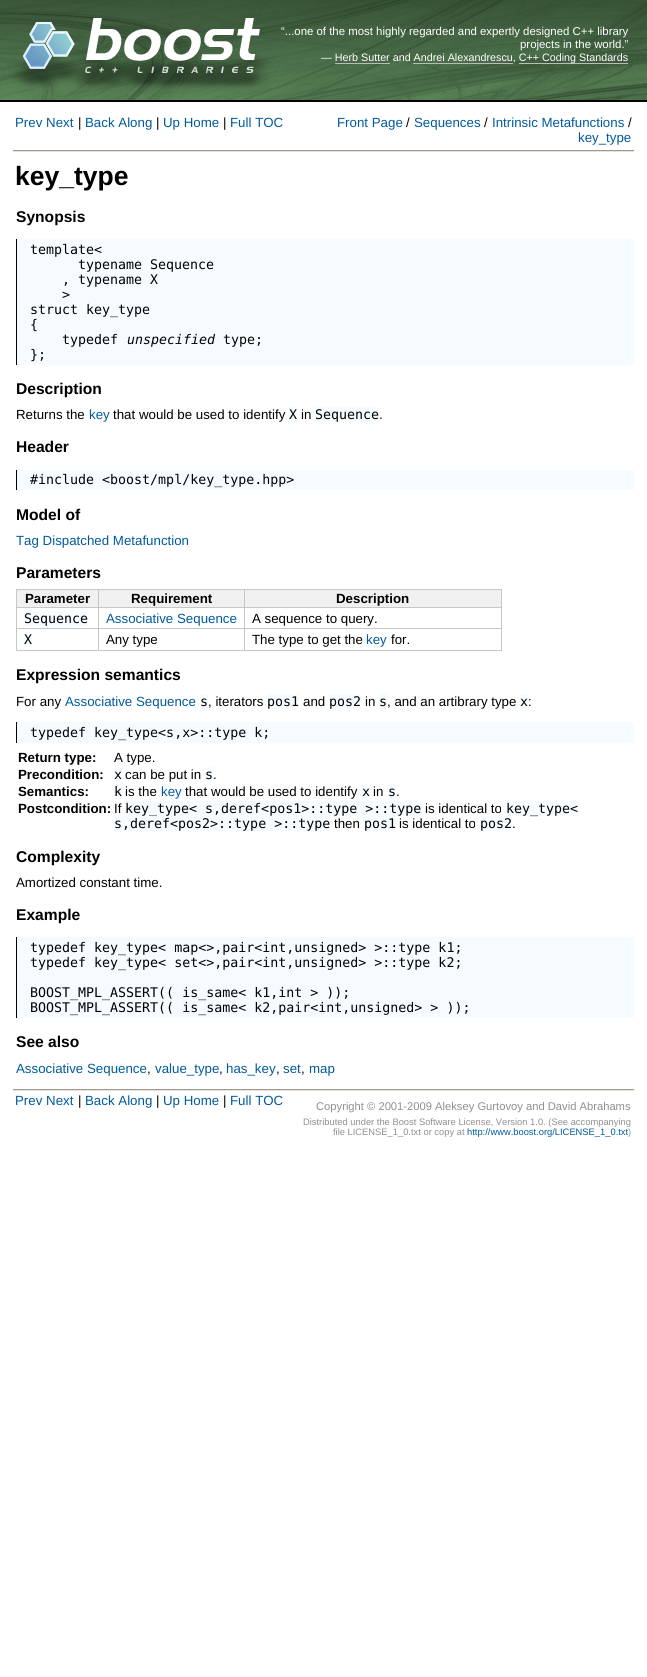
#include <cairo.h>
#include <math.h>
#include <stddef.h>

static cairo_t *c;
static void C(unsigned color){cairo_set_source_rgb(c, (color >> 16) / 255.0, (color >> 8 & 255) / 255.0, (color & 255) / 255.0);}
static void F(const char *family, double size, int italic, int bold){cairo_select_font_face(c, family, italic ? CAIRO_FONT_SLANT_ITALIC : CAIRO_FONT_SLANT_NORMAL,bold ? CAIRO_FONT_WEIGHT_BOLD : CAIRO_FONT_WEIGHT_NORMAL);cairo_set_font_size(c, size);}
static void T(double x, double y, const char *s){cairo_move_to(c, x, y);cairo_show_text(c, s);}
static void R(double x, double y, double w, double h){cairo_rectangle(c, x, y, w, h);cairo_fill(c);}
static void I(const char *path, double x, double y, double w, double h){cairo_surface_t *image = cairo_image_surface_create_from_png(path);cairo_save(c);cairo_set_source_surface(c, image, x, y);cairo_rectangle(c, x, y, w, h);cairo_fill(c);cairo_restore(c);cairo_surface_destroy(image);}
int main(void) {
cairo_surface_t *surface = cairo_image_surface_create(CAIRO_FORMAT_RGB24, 647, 1677);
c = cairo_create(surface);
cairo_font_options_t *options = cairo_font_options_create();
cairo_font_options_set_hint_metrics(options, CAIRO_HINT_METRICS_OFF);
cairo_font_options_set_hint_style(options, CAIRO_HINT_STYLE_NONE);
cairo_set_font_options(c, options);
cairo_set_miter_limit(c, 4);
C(0xffffff);
cairo_paint(c);
C(0x000000);
R(0,100,647,2);
I("1.png",0,0,647,100);
F("Liberation Sans",11.4,0,0);
C(0xffffff);
T(281,35,"“...one of the most highly regarded and expertly designed C++ library");
T(520,48,"projects in the world.”");
F("Liberation Sans",10.75,0,0);
T(321,61,"— Herb Sutter and Andrei Alexandrescu, C++");
C(0xbbbbbb);
R(519,63,109,1);
C(0xffffff);
T(542,61,"Coding Standards");
C(0xbbbbbb);
R(335,63,55,1);
R(413,63,100,1);
F("Liberation Sans",13.3,0,0);
C(0x005a9c);
T(15,127,"Prev Next");
C(0x000000);
T(78,127,"|");
C(0x005a9c);
T(85,127,"Back Along");
C(0x000000);
T(156,127,"|");
C(0x005a9c);
T(163,127,"Up Home");
C(0x000000);
T(223,127,"|");
C(0x005a9c);
T(230,127,"Full TOC");
T(337,127,"Front Page");
C(0x000000);
T(406,127,"/");
C(0x005a9c);
T(414,127,"Sequences");
C(0x000000);
T(484,127,"/");
C(0x005a9c);
T(492,127,"Intrinsic Metafunctions");
C(0x000000);
T(628,127,"/");
C(0x005a9c);
T(578,142,"key_type");
C(0xa09a8b);
R(13,150,621,1);
C(0xe4e2de);
R(13,151,621,1);
F("Liberation Sans",26.5,0,1);
C(0x000000);
T(15,185,"key_type");
F("Liberation Sans",15.6,0,1);
T(16,222,"Synopsis");
C(0xf5fbff);
R(17,239,617,126);
C(0x000000);
R(16,239,1,126);
F("DejaVu Sans Mono",13.3,0,0);
T(30,254,"template<");
T(78,269,"typename Sequence");
T(62,284,", typename X");
T(62,299,">");
T(30,314,"struct key_type");
T(30,329,"{");
T(62,344,"typedef");
F("DejaVu Sans Mono",13.3,1,0);
T(127,344,"unspecified");
F("DejaVu Sans Mono",13.3,0,0);
T(223,344,"type;");
T(30,359,"};");
F("Liberation Sans",15.6,0,1);
T(16,394,"Description");
F("Liberation Sans",13.3,0,0);
T(16,419,"Returns the");
C(0x005a9c);
T(89,419,"key");
C(0x000000);
T(113,419,"that would be used to identify");
C(0xf5fbff);
R(289,407,8,15);
F("DejaVu Sans Mono",13.3,0,0);
C(0x000000);
T(289,419,"X");
F("Liberation Sans",13.3,0,0);
T(301,419,"in");
C(0xf5fbff);
R(315,407,64,15);
F("DejaVu Sans Mono",13.3,0,0);
C(0x000000);
T(315,419,"Sequence");
F("Liberation Sans",13.3,0,0);
T(379,419,".");
F("Liberation Sans",15.6,0,1);
T(16,452,"Header");
C(0xf5fbff);
R(17,470,617,20);
C(0x000000);
R(16,470,1,20);
F("DejaVu Sans Mono",13.3,0,0);
T(30,484,"#include <boost/mpl/key_type.hpp>");
F("Liberation Sans",15.6,0,1);
T(16,520,"Model of");
F("Liberation Sans",13.3,0,0);
C(0x005a9c);
T(16,545,"Tag Dispatched Metafunction");
F("Liberation Sans",15.6,0,1);
C(0x000000);
T(16,578,"Parameters");
C(0xc7c7c7);
R(16,589,486,1);
R(501,589,1,62);
R(16,650,486,1);
R(16,589,1,62);
C(0xf0f0f0);
R(17,590,81,17);
F("Liberation Sans",13.3,0,1);
C(0x000000);
T(25,603,"Parameter");
C(0xf0f0f0);
R(99,590,145,17);
C(0xc7c7c7);
R(244,607,258,1);
R(244,628,258,1);
R(244,628,1,23);
R(98,628,147,1);
R(244,607,1,22);
R(98,607,147,1);
R(98,628,1,23);
R(16,628,83,1);
R(98,607,1,22);
R(16,607,83,1);
R(98,589,1,19);
C(0x000000);
T(131,603,"Requirement");
C(0xf0f0f0);
R(245,590,256,17);
C(0xc7c7c7);
R(244,589,1,19);
C(0x000000);
T(336,603,"Description");
C(0xf5fbff);
R(24,611,64,15);
F("DejaVu Sans Mono",13.3,0,0);
C(0x000000);
T(24,623,"Sequence");
F("Liberation Sans",13.3,0,0);
C(0x005a9c);
T(106,623,"Associative Sequence");
C(0x000000);
T(252,623,"A sequence to query.");
C(0xf5fbff);
R(24,632,8,15);
F("DejaVu Sans Mono",13.3,0,0);
C(0x000000);
T(24,644,"X");
F("Liberation Sans",13.3,0,0);
T(106,644,"Any type");
T(252,644,"The type to get the");
C(0x005a9c);
T(366,644,"key");
C(0x000000);
T(391,644,"for.");
F("Liberation Sans",15.6,0,1);
T(16,680,"Expression semantics");
F("Liberation Sans",13.3,0,0);
T(16,706,"For any");
C(0x005a9c);
T(65,706,"Associative Sequence");
C(0xf5fbff);
R(200,694,8,15);
F("DejaVu Sans Mono",13.3,0,0);
C(0x000000);
T(200,706,"s");
F("Liberation Sans",13.3,0,0);
T(208,706,", iterators");
C(0xf5fbff);
R(267,694,32,15);
F("DejaVu Sans Mono",13.3,0,0);
C(0x000000);
T(267,706,"pos1");
F("Liberation Sans",13.3,0,0);
T(303,706,"and");
C(0xf5fbff);
R(329,694,32,15);
F("DejaVu Sans Mono",13.3,0,0);
C(0x000000);
T(329,706,"pos2");
F("Liberation Sans",13.3,0,0);
T(365,706,"in");
C(0xf5fbff);
R(379,694,8,15);
F("DejaVu Sans Mono",13.3,0,0);
C(0x000000);
T(379,706,"s");
F("Liberation Sans",13.3,0,0);
T(387,706,", and an artibrary type");
C(0xf5fbff);
R(520,694,8,15);
F("DejaVu Sans Mono",13.3,0,0);
C(0x000000);
T(520,706,"x");
F("Liberation Sans",13.3,0,0);
T(528,706,":");
C(0xf5fbff);
R(17,722,617,21);
C(0x000000);
R(16,722,1,21);
F("DejaVu Sans Mono",13.3,0,0);
T(30,737,"typedef key_type<s,x>::type k;");
F("Liberation Sans",13.3,0,1);
T(18,762,"Return type:");
F("Liberation Sans",13.3,0,0);
T(114,762,"A type.");
F("Liberation Sans",13.3,0,1);
T(18,779,"Precondition:");
C(0xf5fbff);
R(114,767,8,15);
F("DejaVu Sans Mono",13.3,0,0);
C(0x000000);
T(114,779,"x");
F("Liberation Sans",13.3,0,0);
T(125,779,"can be put in");
C(0xf5fbff);
R(205,767,8,15);
F("DejaVu Sans Mono",13.3,0,0);
C(0x000000);
T(205,779,"s");
F("Liberation Sans",13.3,0,0);
T(213,779,".");
F("Liberation Sans",13.3,0,1);
T(18,796,"Semantics:");
C(0xf5fbff);
R(114,784,8,15);
F("DejaVu Sans Mono",13.3,0,0);
C(0x000000);
T(114,796,"k");
F("Liberation Sans",13.3,0,0);
T(125,796,"is the");
C(0x005a9c);
T(161,796,"key");
C(0x000000);
T(185,796,"that would be used to identify");
C(0xf5fbff);
R(362,784,8,15);
F("DejaVu Sans Mono",13.3,0,0);
C(0x000000);
T(362,796,"x");
F("Liberation Sans",13.3,0,0);
T(373,796,"in");
C(0xf5fbff);
R(388,784,8,15);
F("DejaVu Sans Mono",13.3,0,0);
C(0x000000);
T(388,796,"s");
F("Liberation Sans",13.3,0,0);
T(396,796,".");
F("Liberation Sans",13.3,0,1);
T(18,813,"Postcondition:");
F("Liberation Sans",13.3,0,0);
T(114,813,"If");
C(0xf5fbff);
R(125,801,297,15);
F("DejaVu Sans Mono",13.3,0,0);
C(0x000000);
T(125,813,"key_type< s,deref<pos1>::type >::type");
F("Liberation Sans",13.3,0,0);
T(425,813,"is identical to");
C(0xf5fbff);
R(506,801,72,15);
F("DejaVu Sans Mono",13.3,0,0);
C(0x000000);
T(506,813,"key_type<");
C(0xf5fbff);
R(114,816,216,15);
C(0x000000);
T(114,828,"s,deref<pos2>::type >::type");
F("Liberation Sans",13.3,0,0);
T(334,828,"then");
C(0xf5fbff);
R(364,816,32,15);
F("DejaVu Sans Mono",13.3,0,0);
C(0x000000);
T(364,828,"pos1");
F("Liberation Sans",13.3,0,0);
T(399,828,"is identical to");
C(0xf5fbff);
R(480,816,32,15);
F("DejaVu Sans Mono",13.3,0,0);
C(0x000000);
T(480,828,"pos2");
F("Liberation Sans",13.3,0,0);
T(512,828,".");
F("Liberation Sans",15.6,0,1);
T(16,862,"Complexity");
F("Liberation Sans",13.3,0,0);
T(16,887,"Amortized constant time.");
F("Liberation Sans",15.6,0,1);
T(16,920,"Example");
C(0xf5fbff);
R(17,937,617,81);
C(0x000000);
R(16,937,1,81);
F("DejaVu Sans Mono",13.3,0,0);
T(30,952,"typedef key_type< map<>,pair<int,unsigned> >::type k1;");
T(30,967,"typedef key_type< set<>,pair<int,unsigned> >::type k2;");
T(30,997,"BOOST_MPL_ASSERT(( is_same< k1,int > ));");
T(30,1012,"BOOST_MPL_ASSERT(( is_same< k2,pair<int,unsigned> > ));");
F("Liberation Sans",15.6,0,1);
T(16,1047,"See also");
F("Liberation Sans",13.3,0,0);
C(0x005a9c);
T(16,1073,"Associative Sequence");
C(0x000000);
T(147,1073,",");
C(0x005a9c);
T(155,1073,"value_type");
C(0x000000);
T(219,1073,",");
C(0x005a9c);
T(226,1073,"has_key");
C(0x000000);
T(276,1073,",");
C(0x005a9c);
T(283,1073,"set");
C(0x000000);
T(301,1073,",");
C(0x005a9c);
T(309,1073,"map");
C(0xa09a8b);
R(13,1089,621,1);
C(0xe4e2de);
R(13,1090,621,1);
C(0x005a9c);
T(15,1105,"Prev Next");
C(0x000000);
T(78,1105,"|");
C(0x005a9c);
T(85,1105,"Back Along");
C(0x000000);
T(156,1105,"|");
C(0x005a9c);
T(163,1105,"Up Home");
C(0x000000);
T(223,1105,"|");
C(0x005a9c);
T(230,1105,"Full TOC");
F("Liberation Sans",11.2,0,0);
C(0x8f8f8f);
T(316,1110,"Copyright © 2001-2009 Aleksey Gurtovoy and David Abrahams");
F("Liberation Sans",9.35,0,0);
T(303,1125,"Distributed under the Boost Software License, Version 1.0. (See accompanying");
T(333,1135,"file LICENSE_1_0.txt or copy at");
C(0x005a9c);
T(467,1135,"http://www.boost.org/LICENSE_1_0.txt");
C(0x8f8f8f);
T(628,1135,")");
cairo_surface_write_to_png(surface, "o.png");
cairo_font_options_destroy(options);
cairo_destroy(c);
cairo_surface_destroy(surface);
return 0;
}
